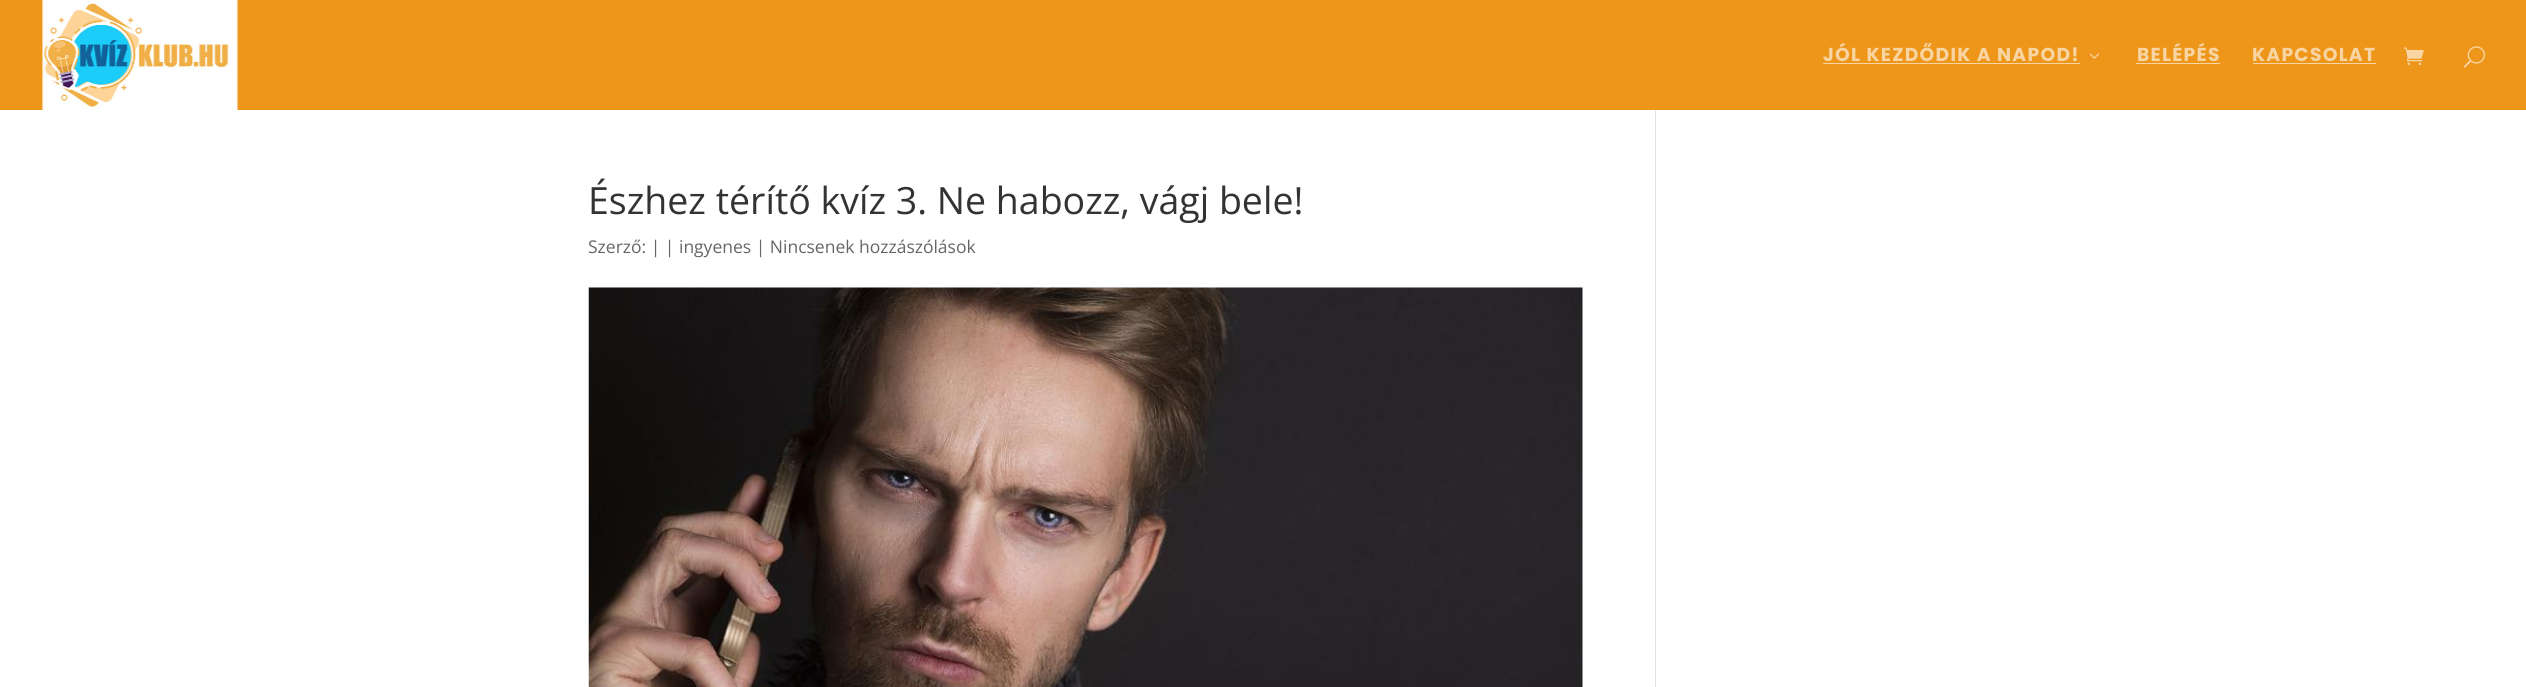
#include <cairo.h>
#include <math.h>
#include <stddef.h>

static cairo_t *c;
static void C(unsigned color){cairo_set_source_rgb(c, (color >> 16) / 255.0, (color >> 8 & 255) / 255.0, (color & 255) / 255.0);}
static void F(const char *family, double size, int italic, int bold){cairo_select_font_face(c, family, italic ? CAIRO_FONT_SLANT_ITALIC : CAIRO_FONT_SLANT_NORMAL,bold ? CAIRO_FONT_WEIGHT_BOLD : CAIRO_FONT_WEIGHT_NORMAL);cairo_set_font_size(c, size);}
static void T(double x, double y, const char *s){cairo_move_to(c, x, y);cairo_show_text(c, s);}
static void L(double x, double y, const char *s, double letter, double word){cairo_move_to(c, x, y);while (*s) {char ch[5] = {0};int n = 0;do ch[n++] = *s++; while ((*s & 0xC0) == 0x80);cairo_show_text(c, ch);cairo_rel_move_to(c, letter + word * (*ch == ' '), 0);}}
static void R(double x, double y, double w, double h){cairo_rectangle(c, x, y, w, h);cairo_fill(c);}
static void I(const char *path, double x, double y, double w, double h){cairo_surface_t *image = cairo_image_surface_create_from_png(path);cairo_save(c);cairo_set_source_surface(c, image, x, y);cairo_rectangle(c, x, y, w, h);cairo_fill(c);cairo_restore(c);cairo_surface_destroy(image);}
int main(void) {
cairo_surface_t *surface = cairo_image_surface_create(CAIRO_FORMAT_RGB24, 2526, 687);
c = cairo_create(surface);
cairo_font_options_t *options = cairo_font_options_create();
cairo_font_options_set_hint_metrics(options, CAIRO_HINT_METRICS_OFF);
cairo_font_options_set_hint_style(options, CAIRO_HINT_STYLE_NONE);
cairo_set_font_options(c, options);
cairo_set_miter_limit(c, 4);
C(0xffffff);
cairo_paint(c);
C(0xee961a);
R(0,0,2526,110);
I("1.png",42,0,197,110);
F("Poppins",18.75,0,1);
C(0xf8d5a3);
L(1823,61,"JÓL KEZDŐDIK A NAPOD!",1.25,0);
R(1823,63,257,1);
I("2.png",2089,53,10,6);
L(2137,61,"BELÉPÉS",1.25,0);
R(2136,63,84,1);
L(2252,61,"KAPCSOLAT",1.25,0);
R(2253,63,123,1);
I("3.png",2403,47,21,18);
I("4.png",2463,46,22,22);
F("Open Sans",37.5,0,0);
C(0x333333);
T(588,214,"Észhez térítő kvíz 3. Ne habozz, vágj bele!");
F("Open Sans",17.5,0,0);
C(0x666666);
T(588,253,"Szerző: | | ingyenes | Nincsenek hozzászólások");
I("5.png",588,287,995,400);
C(0xe2e2e2);
R(1655,110,1,577);
cairo_surface_write_to_png(surface, "o.png");
cairo_font_options_destroy(options);
cairo_destroy(c);
cairo_surface_destroy(surface);
return 0;
}
